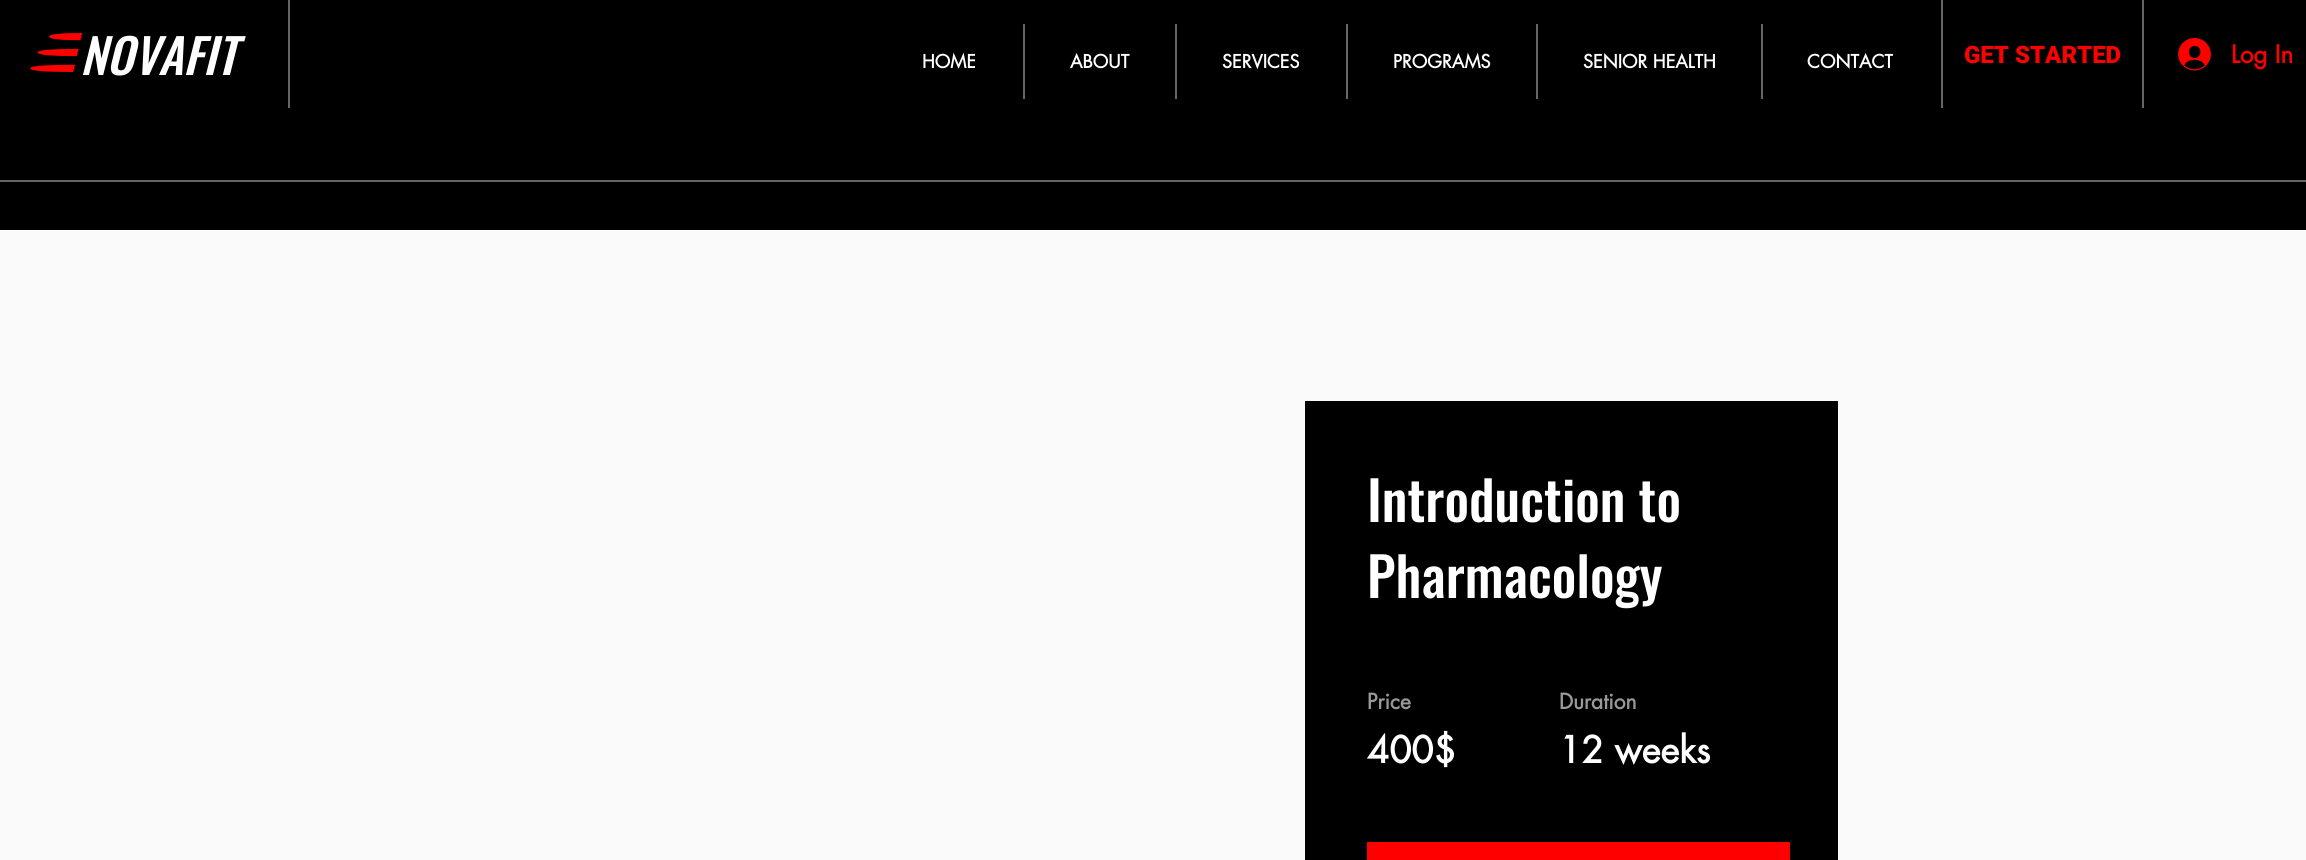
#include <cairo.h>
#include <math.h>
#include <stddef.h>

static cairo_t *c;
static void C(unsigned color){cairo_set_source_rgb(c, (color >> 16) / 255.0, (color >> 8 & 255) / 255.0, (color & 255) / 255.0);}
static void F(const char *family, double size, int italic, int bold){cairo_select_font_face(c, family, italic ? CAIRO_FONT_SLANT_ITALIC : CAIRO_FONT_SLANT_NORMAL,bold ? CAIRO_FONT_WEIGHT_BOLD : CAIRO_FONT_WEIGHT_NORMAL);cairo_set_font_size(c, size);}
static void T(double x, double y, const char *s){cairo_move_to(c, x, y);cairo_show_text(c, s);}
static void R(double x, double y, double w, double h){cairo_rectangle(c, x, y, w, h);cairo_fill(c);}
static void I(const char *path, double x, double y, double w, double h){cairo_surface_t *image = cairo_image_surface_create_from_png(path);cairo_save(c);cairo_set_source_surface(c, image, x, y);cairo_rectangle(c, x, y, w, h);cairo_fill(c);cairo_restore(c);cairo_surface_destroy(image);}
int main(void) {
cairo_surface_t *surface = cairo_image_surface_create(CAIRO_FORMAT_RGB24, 2306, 860);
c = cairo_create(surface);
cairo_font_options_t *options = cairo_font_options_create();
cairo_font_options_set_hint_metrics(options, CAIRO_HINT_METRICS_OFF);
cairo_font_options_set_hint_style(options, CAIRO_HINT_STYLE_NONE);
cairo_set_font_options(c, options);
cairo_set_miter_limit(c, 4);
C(0xfafafa);
cairo_paint(c);
C(0x000000);
R(0,0,2306,230);
I("1.png",30,33,53,39);
F("Oswald Medium",48,1,0);
C(0xffffff);
T(80,75,"NOVAFIT");
C(0x666666);
R(288,0,2,108);
F("futura",18,0,1);
C(0xffffff);
T(922,68,"HOME");
C(0x666666);
R(1023,24,2,75);
C(0xffffff);
T(1070,68,"ABOUT");
C(0x666666);
R(1175,24,2,75);
C(0xffffff);
T(1222,68,"SERVICES");
C(0x666666);
R(1346,24,2,75);
C(0xffffff);
T(1393,68,"PROGRAMS");
C(0x666666);
R(1536,24,2,75);
C(0xffffff);
T(1583,68,"SENIOR HEALTH");
C(0x666666);
R(1761,24,2,75);
C(0xffffff);
T(1807,68,"CONTACT");
C(0x666666);
R(1941,0,2,108);
F("Roboto Black",24,0,0);
C(0xff0000);
T(1964,63,"GET STARTED");
C(0x666666);
R(2142,0,2,108);
I("2.png",2178,38,33,33);
F("futura",24,0,1);
C(0xff0000);
T(2231,63,"Log In");
C(0x666666);
R(0,180,2306,2);
C(0x000000);
R(1305,401,533,459);
F("Oswald Medium",54,0,0);
C(0xffffff);
T(1367,522,"Introduction to");
T(1367,598,"Pharmacology");
F("futura",21,0,1);
C(0x999999);
T(1367,709,"Price");
T(1559,709,"Duration");
F("futura",36,0,1);
C(0xffffff);
T(1367,763,"400$");
T(1559,763,"12 weeks");
C(0xff0000);
R(1367,842,423,18);
cairo_surface_write_to_png(surface, "o.png");
cairo_font_options_destroy(options);
cairo_destroy(c);
cairo_surface_destroy(surface);
return 0;
}
